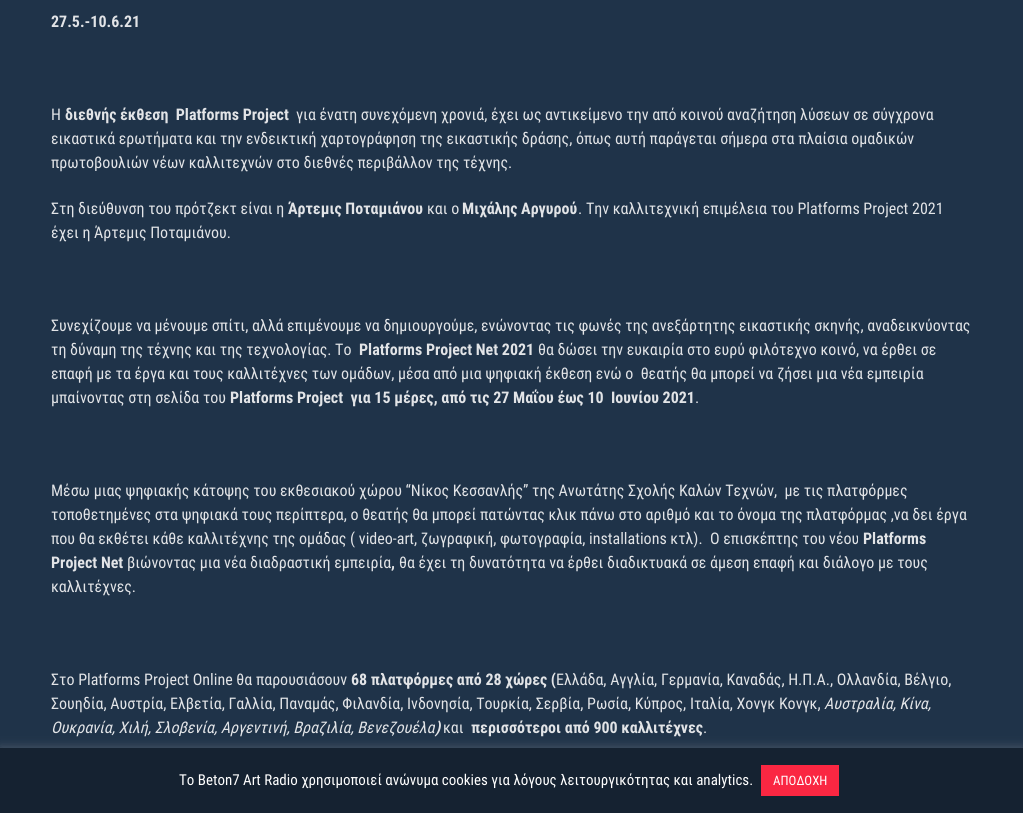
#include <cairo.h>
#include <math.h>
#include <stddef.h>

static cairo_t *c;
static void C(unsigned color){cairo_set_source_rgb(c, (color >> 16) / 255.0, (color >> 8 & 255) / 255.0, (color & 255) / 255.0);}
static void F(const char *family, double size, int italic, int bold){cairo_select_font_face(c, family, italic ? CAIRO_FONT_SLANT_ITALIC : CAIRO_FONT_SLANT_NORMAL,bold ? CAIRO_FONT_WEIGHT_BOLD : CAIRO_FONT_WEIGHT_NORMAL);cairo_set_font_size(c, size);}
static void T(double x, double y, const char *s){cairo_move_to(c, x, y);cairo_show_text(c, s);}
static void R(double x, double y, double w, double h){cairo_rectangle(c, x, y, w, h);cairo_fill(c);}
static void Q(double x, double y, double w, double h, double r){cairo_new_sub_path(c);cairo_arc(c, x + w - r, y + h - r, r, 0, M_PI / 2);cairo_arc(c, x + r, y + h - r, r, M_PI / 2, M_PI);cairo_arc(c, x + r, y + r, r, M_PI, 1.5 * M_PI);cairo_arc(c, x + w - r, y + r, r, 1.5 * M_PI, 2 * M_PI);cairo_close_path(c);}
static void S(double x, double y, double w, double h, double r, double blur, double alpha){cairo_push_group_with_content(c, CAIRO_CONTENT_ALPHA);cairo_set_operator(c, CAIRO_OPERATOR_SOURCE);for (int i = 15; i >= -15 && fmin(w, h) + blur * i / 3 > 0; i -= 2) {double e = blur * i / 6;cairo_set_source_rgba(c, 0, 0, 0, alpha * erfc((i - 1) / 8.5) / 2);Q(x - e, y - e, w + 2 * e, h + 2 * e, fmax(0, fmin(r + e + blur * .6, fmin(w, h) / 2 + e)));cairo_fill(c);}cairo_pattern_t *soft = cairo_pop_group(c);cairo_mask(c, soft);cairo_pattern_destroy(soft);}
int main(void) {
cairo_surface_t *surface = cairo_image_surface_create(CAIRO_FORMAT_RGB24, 1023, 813);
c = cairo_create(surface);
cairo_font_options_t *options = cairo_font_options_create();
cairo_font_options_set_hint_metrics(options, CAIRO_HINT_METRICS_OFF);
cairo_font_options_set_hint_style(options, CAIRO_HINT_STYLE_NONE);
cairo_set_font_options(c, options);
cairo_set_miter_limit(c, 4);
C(0x1f3349);
cairo_paint(c);
F("Roboto Condensed",16,0,1);
C(0xe2e4e7);
T(51,27,"27.5.-10.6.21");
F("Roboto Condensed",16,0,0);
T(51,120,"Η");
F("Roboto Condensed",16,0,1);
T(65,120,"διεθνής έκθεση  Platforms Project");
F("Roboto Condensed",16,0,0);
T(296,120,"για ένατη συνεχόμενη χρονιά, έχει ως αντικείμενο την από κοινού αναζήτηση λύσεων σε σύγχρονα");
T(51,144,"εικαστικά ερωτήματα και την ενδεικτική χαρτογράφηση της εικαστικής δράσης, όπως αυτή παράγεται σήμερα στα πλαίσια ομαδικών");
T(51,168,"πρωτοβουλιών νέων καλλιτεχνών στο διεθνές περιβάλλον της τέχνης.");
T(51,214,"Στη διεύθυνση του πρότζεκτ είναι η");
F("Roboto Condensed",16,0,1);
T(288,214,"Άρτεμις Ποταμιάνου");
F("Roboto Condensed",16,0,0);
T(427,214,"και ο");
F("Roboto Condensed",16,0,1);
T(462,214,"Μιχάλης Αργυρού");
F("Roboto Condensed",16,0,0);
T(578,214,". Την καλλιτεχνική επιμέλεια του Platforms Project 2021");
T(51,238,"έχει η Άρτεμις Ποταμιάνου.");
T(51,331,"Συνεχίζουμε να μένουμε σπίτι, αλλά επιμένουμε να δημιουργούμε, ενώνοντας τις φωνές της ανεξάρτητης εικαστικής σκηνής, αναδεικνύοντας");
T(51,355,"τη δύναμη της τέχνης και της τεχνολογίας. Το");
F("Roboto Condensed",16,0,1);
T(359,355,"Platforms Project Net 2021");
F("Roboto Condensed",16,0,0);
T(538,355,"θα δώσει την ευκαιρία στο ευρύ φιλότεχνο κοινό, να έρθει σε");
T(51,379,"επαφή με τα έργα και τους καλλιτέχνες των ομάδων, μέσα από μια ψηφιακή έκθεση ενώ ο  θεατής θα μπορεί να ζήσει μια νέα εμπειρία");
T(51,403,"μπαίνοντας στη σελίδα του");
F("Roboto Condensed",16,0,1);
T(230,403,"Platforms Project  για 15 μέρες, από τις 27 Μαΐου έως 10  Ιουνίου 2021");
F("Roboto Condensed",16,0,0);
T(695,403,".");
T(51,496,"Μέσω μιας ψηφιακής κάτοψης του εκθεσιακού χώρου “Νίκος Κεσσανλής” της Ανωτάτης Σχολής Καλών Τεχνών,  με τις πλατφόρμες");
T(51,520,"τοποθετημένες στα ψηφιακά τους περίπτερα, ο θεατής θα μπορεί πατώντας κλικ πάνω στο αριθμό και το όνομα της πλατφόρμας ,να δει έργα");
T(51,544,"που θα εκθέτει κάθε καλλιτέχνης της ομάδας ( video-art, ζωγραφική, φωτογραφία, installations κτλ).  Ο επισκέπτης του νέου");
F("Roboto Condensed",16,0,1);
T(863,544,"Platforms");
T(51,568,"Project Net");
F("Roboto Condensed",16,0,0);
T(127,568,"βιώνοντας μια νέα διαδραστική εμπειρία");
F("Roboto Condensed",16,0,1);
T(391,568,",");
F("Roboto Condensed",16,0,0);
T(399,568,"θα έχει τη δυνατότητα να έρθει διαδικτυακά σε άμεση επαφή και διάλογο με τους");
T(51,592,"καλλιτέχνες.");
T(51,685,"Στο Platforms Project Οnline θα παρουσιάσουν");
F("Roboto Condensed",16,0,1);
T(351,685,"68 πλατφόρμες από 28 χώρες (");
F("Roboto Condensed",16,0,0);
T(556,685,"Ελλάδα, Αγγλία, Γερμανία, Καναδάς, Η.Π.Α., Ολλανδία, Βέλγιο,");
T(51,709,"Σουηδία, Αυστρία, Ελβετία, Γαλλία, Παναμάς, Φιλανδία, Ινδονησία, Τουρκία, Σερβία, Ρωσία, Κύπρος, Ιταλία, Χονγκ Κονγκ,");
F("Roboto Condensed",16,1,0);
T(824,709,"Αυστραλία, Κίνα,");
T(51,733,"Ουκρανία, Χιλή, Σλοβενία, Αργεντινή, Βραζιλία, Βενεζουέλα");
F("Roboto Condensed",16,1,1);
T(435,733,")");
F("Roboto Condensed",16,0,0);
T(443,733,"και");
F("Roboto Condensed",16,0,1);
T(471,733,"περισσότεροι από 900 καλλιτέχνες");
F("Roboto Condensed",16,0,0);
T(703,733,".");
C(0xacabab);
S(0,747,1023,65,0,5,.3);
C(0x152231);
R(0,748,1023,65);
F("Roboto Condensed",15,0,0);
C(0xffffff);
T(179,785,"To Beton7 Art Radio χρησιμοποιεί ανώνυμα cookies για λόγους λειτουργικότητας και analytics.");
C(0xfa2742);
R(761,765,78,31);
F("Roboto Condensed",13,0,0);
C(0xffffff);
T(773,785,"ΑΠΟΔΟΧΗ");
cairo_surface_write_to_png(surface, "o.png");
cairo_font_options_destroy(options);
cairo_destroy(c);
cairo_surface_destroy(surface);
return 0;
}
